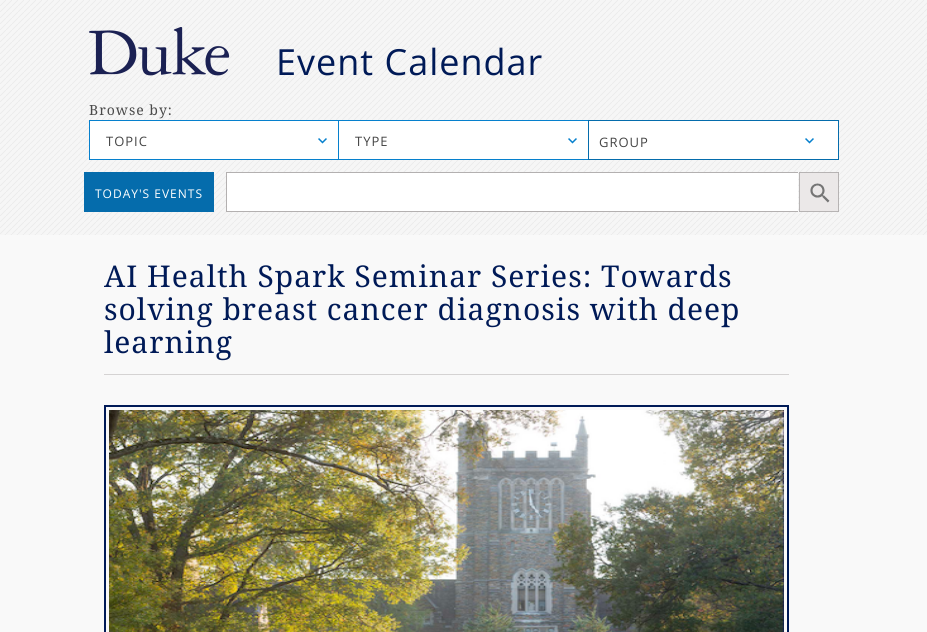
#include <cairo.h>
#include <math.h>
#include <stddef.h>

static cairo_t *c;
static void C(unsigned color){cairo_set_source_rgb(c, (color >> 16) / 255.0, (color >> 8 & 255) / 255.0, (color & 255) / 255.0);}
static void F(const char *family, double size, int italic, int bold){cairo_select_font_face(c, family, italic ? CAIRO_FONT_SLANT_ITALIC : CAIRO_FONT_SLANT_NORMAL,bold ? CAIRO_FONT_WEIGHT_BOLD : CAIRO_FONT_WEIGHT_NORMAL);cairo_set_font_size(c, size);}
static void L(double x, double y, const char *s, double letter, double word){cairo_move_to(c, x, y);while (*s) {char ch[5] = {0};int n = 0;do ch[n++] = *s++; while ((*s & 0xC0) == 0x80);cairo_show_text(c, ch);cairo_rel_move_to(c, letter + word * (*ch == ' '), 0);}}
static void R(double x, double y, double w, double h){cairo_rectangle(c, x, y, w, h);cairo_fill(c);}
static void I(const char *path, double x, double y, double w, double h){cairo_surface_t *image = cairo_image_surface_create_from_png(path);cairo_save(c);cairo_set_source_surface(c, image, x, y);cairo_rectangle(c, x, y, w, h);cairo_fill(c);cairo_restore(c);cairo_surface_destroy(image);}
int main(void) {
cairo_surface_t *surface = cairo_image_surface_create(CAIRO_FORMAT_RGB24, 927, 632);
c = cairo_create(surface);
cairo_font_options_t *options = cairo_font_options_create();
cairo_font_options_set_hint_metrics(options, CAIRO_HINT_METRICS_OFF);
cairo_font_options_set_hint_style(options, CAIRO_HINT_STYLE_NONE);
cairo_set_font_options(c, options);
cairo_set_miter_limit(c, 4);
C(0xffffff);
cairo_paint(c);
I("1.png",0,0,927,235);
I("2.png",89,27,141,49);
F("Open Sans",36,0,0);
C(0x001a57);
L(276,75,"Event Calendar",1,0);
F("Droid Serif",14,0,0);
C(0x4a4a4a);
L(89,115,"Browse by:",1,0);
C(0xffffff);
R(90,121,248,38);
C(0x0680cd);
R(89,120,499,1);
R(89,159,499,1);
R(89,120,1,40);
F("Open Sans",13,0,0);
C(0x444444);
L(106,146,"TOPIC",1,0);
I("3.png",318,138,9,6);
C(0xffffff);
R(339,121,249,38);
C(0x0680cd);
R(338,120,1,40);
C(0x444444);
L(355,146,"TYPE",1,0);
I("3.png",568,138,9,6);
C(0xffffff);
cairo_rectangle(c,588.5,120.5,250,39);
cairo_fill_preserve(c);
C(0x056cac);
cairo_set_line_width(c,1);
cairo_stroke(c);
I("3.png",805,138,9,6);
C(0x444444);
L(599,147,"GROUP",1,0);
C(0x056cac);
R(84,172,130,40);
F("Open Sans",12,0,0);
C(0xffffff);
L(95,198,"TODAY'S EVENTS",1,0);
R(227,173,571,38);
C(0xb3b0b0);
R(226,172,572,1);
R(226,211,572,1);
R(226,172,1,40);
I("4.png",799,172,40,40);
C(0xf9f9f9);
R(0,235,927,397);
F("Droid Serif",30,0,0);
C(0x001a57);
L(104,287,"AI Health Spark Seminar Series: Towards",1,0);
L(104,320,"solving breast cancer diagnosis with deep",1,0);
L(104,353,"learning",1,0);
C(0xd5d3d3);
R(104,374,685,1);
cairo_rectangle(c,105,406,683,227);
C(0x001a57);
cairo_set_line_width(c,2);
cairo_stroke(c);
I("5.png",109,410,675,222);
cairo_surface_write_to_png(surface, "o.png");
cairo_font_options_destroy(options);
cairo_destroy(c);
cairo_surface_destroy(surface);
return 0;
}
